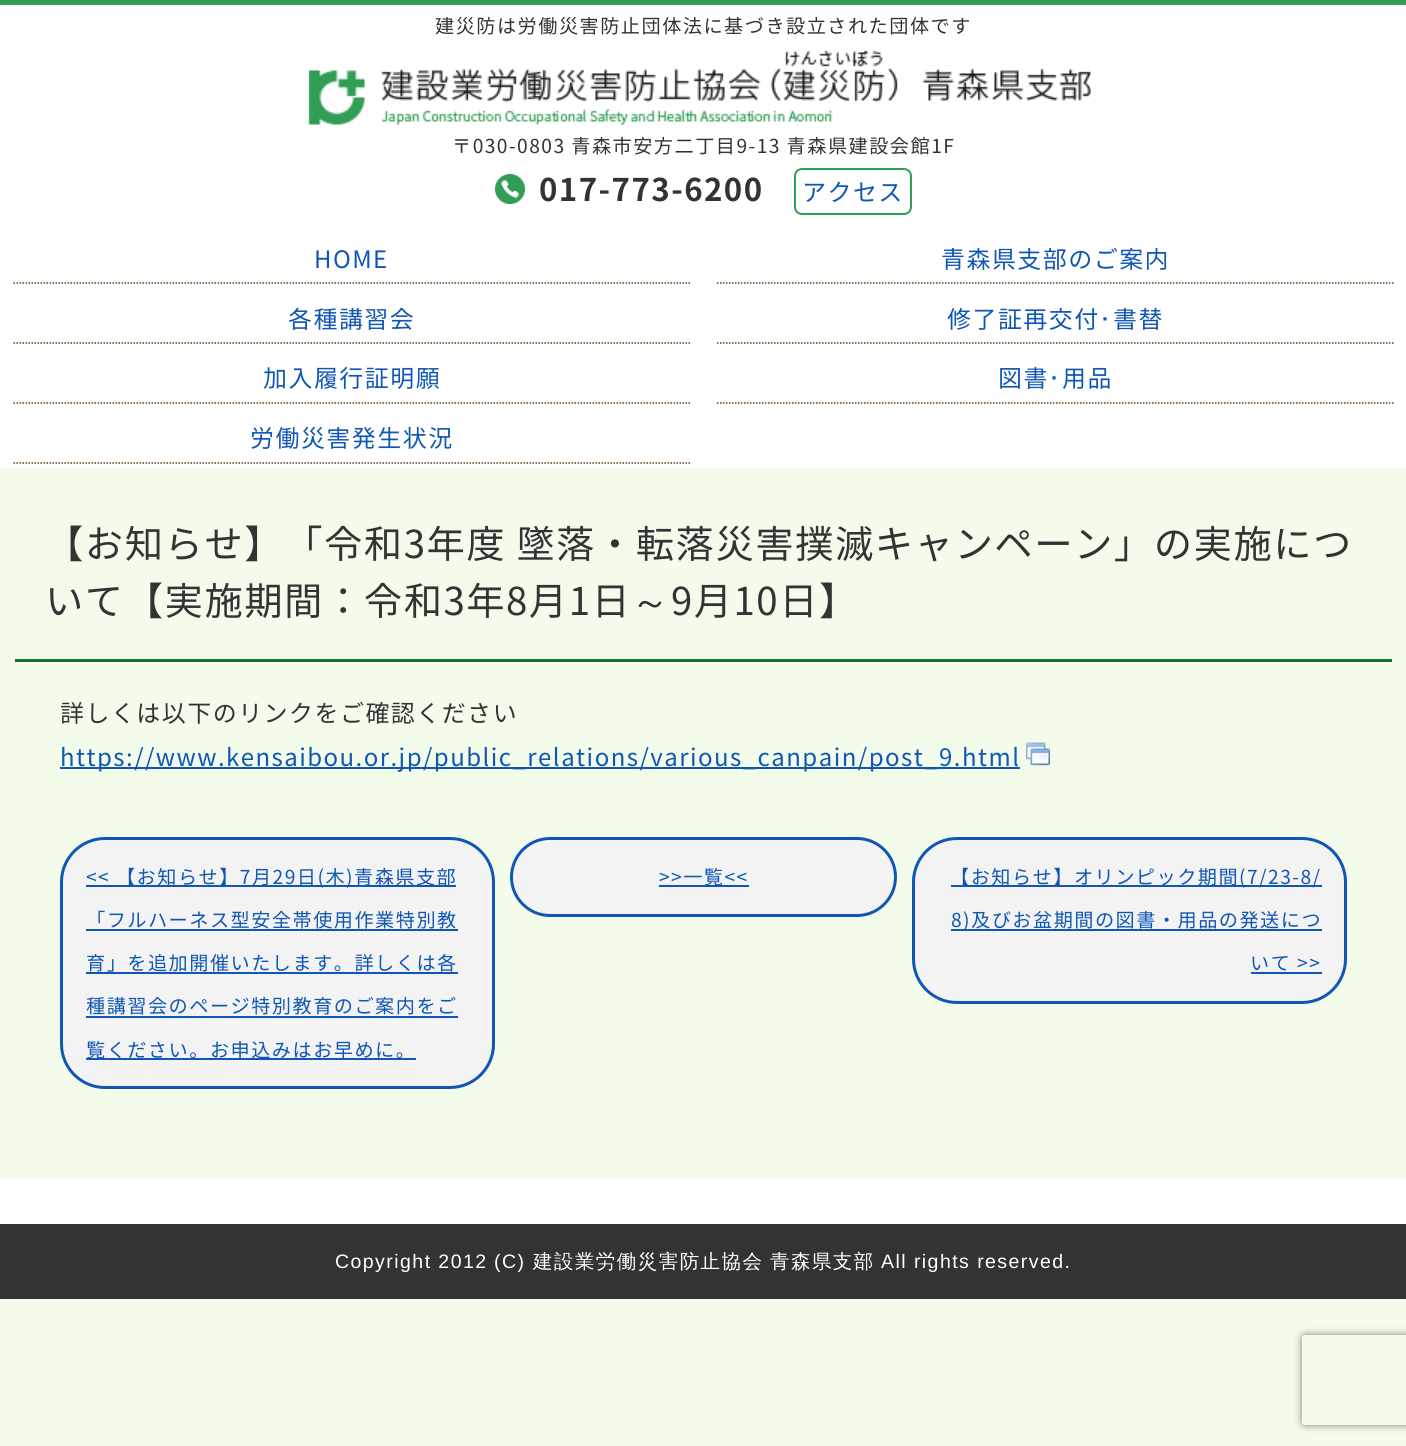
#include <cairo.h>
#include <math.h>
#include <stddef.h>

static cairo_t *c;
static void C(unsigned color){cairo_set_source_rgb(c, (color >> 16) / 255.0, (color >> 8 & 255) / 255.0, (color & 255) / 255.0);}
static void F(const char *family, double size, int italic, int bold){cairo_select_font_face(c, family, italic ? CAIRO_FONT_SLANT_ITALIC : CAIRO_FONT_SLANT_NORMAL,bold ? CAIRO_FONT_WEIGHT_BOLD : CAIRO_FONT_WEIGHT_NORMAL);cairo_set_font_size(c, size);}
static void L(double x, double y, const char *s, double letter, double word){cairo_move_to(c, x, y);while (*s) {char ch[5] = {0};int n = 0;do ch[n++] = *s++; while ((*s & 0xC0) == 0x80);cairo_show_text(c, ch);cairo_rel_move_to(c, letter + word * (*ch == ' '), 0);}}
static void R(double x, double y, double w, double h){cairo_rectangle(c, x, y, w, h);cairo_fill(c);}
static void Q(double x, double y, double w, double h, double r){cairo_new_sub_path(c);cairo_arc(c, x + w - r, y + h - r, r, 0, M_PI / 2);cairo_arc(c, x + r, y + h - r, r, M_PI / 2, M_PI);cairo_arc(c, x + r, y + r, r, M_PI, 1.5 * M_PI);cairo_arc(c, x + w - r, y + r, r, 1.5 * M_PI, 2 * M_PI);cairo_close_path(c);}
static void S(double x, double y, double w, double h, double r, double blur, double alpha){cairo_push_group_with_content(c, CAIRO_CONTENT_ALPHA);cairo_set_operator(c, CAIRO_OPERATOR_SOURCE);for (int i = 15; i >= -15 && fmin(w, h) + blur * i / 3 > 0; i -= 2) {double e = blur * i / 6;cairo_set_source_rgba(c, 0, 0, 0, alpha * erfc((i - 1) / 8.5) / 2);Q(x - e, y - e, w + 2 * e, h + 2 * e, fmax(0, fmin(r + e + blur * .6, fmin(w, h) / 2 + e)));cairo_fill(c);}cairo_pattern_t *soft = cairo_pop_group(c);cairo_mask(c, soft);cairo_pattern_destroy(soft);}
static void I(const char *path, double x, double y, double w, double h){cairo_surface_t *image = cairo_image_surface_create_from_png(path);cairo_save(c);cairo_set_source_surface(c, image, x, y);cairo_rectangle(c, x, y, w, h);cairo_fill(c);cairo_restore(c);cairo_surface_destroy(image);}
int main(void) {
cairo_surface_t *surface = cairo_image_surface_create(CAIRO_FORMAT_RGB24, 1406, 1446);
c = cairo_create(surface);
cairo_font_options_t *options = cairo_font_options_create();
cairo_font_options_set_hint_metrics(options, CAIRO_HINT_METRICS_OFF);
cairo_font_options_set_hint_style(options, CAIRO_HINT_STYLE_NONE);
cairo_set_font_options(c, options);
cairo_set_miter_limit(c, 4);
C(0xf3fceb);
cairo_paint(c);
C(0x329d55);
R(0,0,1406,5);
C(0xffffff);
R(0,5,1406,463);
F("Noto Sans JP",19.2,0,0);
C(0x333333);
L(435,33,"建災防は労働災害防止団体法に基づき設立された団体です",1.45,0);
I("1.png",308,50,783,75);
L(452,153,"〒030-0803 青森市安方二丁目9-13 青森県建設会館1F",1.45,0);
I("2.png",495,174,30,30);
F("Noto Sans JP",31.25,0,1);
L(539,201,"017-773-6200",1.45,0);
Q(795,169,116,45,7);
C(0x329d55);
cairo_stroke(c);
F("Noto Sans JP",24,0,0);
C(0x0f56b5);
L(802,201,"アクセス",1.45,0);
cairo_new_path(c);
cairo_move_to(c,13.5,283);
cairo_line_to(c,690,283);
C(0x603813);
cairo_set_line_width(c,1.5);
cairo_set_dash(c,(double[]){1.5,1.5},2,0);
cairo_stroke(c);
C(0x0f56b5);
L(314,268,"HOME",1.45,0);
cairo_new_path(c);
cairo_move_to(c,717,283);
cairo_line_to(c,1393.5,283);
C(0x603813);
cairo_stroke(c);
C(0x0f56b5);
L(941,268,"青森県支部のご案内",1.45,0);
cairo_new_path(c);
cairo_move_to(c,13.5,343);
cairo_line_to(c,690,343);
C(0x603813);
cairo_stroke(c);
C(0x0f56b5);
L(288,328,"各種講習会",1.45,0);
cairo_new_path(c);
cairo_move_to(c,717,343);
cairo_line_to(c,1393.5,343);
C(0x603813);
cairo_stroke(c);
C(0x0f56b5);
L(947,328,"修了証再交付",1.45,0);
F("IPAPGothic",24,0,0);
L(1099,328,"･",1.45,0);
F("Noto Sans JP",24,0,0);
L(1113,328,"書替",1.45,0);
cairo_new_path(c);
cairo_move_to(c,13.5,403);
cairo_line_to(c,690,403);
C(0x603813);
cairo_stroke(c);
C(0x0f56b5);
L(263,387,"加入履行証明願",1.45,0);
cairo_new_path(c);
cairo_move_to(c,717,403);
cairo_line_to(c,1393.5,403);
C(0x603813);
cairo_stroke(c);
C(0x0f56b5);
L(998,387,"図書",1.45,0);
F("IPAPGothic",24,0,0);
L(1048,387,"･",1.45,0);
F("Noto Sans JP",24,0,0);
L(1062,387,"用品",1.45,0);
cairo_new_path(c);
cairo_move_to(c,13.5,463);
cairo_line_to(c,690,463);
C(0x603813);
cairo_stroke(c);
C(0x0f56b5);
L(250,447,"労働災害発生状況",1.45,0);
C(0x127231);
R(15,659,1377,3);
F("Noto Sans JP",38.4,0,0);
C(0x333333);
L(45,558,"【お知らせ】「令和3年度 墜落・転落災害撲滅キャンペーン」の実施につ",1.45,0);
L(45,615,"いて【実施期間：令和3年8月1日",1.45,0);
F("WenQuanYi Zen Hei Medium",38.4,0,0);
L(631,615,"～",1.45,0);
F("Noto Sans JP",38.4,0,0);
L(671,615,"9月10日】",1.45,0);
F("Noto Sans JP",24,0,0);
L(60,722,"詳しくは以下のリンクをご確認ください",1.45,0);
C(0x0f56b5);
R(60,767,960,2);
L(60,766,"https://www.kensaibou.or.jp/public_relations/various_canpain/post_9.html",1.45,0);
I("3.png",1026,742,24,24);
C(0xf3f3f3);
Q(61.5,838.5,432,249,43.5);
cairo_fill_preserve(c);
C(0x0f56b5);
cairo_set_line_width(c,3);
cairo_set_dash(c,NULL,0,0);
cairo_stroke(c);
R(86,885,370,2);
F("Noto Sans JP",19.2,0,0);
L(86,884,"<< 【お知らせ】7月29日(木)青森県支部",1.45,0);
L(86,927,"「フルハーネス型安全帯使用作業特別教",1.45,0);
R(86,929,372,2);
L(86,970,"育」を追加開催いたします。詳しくは各",1.45,0);
R(86,972,372,2);
L(86,1013,"種講習会のページ特別教育のご案内をご",1.45,0);
R(86,1016,372,2);
R(86,1058,330,2);
L(86,1057,"覧ください。お申込みはお早めに。",1.45,0);
C(0xf3f3f3);
Q(511.5,838.5,384,77,38.5);
cairo_fill_preserve(c);
C(0x0f56b5);
cairo_stroke(c);
R(659,885,90,2);
L(659,884,">>一覧<<",1.45,0);
C(0xf3f3f3);
Q(913.5,838.5,432,164,43.5);
cairo_fill_preserve(c);
C(0x0f56b5);
cairo_stroke(c);
R(951,885,371,2);
L(950,884,"【お知らせ】オリンピック期間(7/23-8/",1.45,0);
R(951,929,371,2);
L(951,927,"8)及びお盆期間の図書・用品の発送につ",1.45,0);
L(1250,970,"いて >>",1.45,0);
R(1251,972,71,2);
C(0xffffff);
R(0,1179,1406,45);
C(0x333333);
R(0,1224,1406,75);
F("Liberation Sans",19.5,0,0);
C(0xffffff);
L(335,1268,"Copyright 2012",1.45,0);
L(494,1268,"(C)",1.45,0);
F("WenQuanYi Zen Hei Medium",19.5,0,0);
L(533,1268,"建設業労働災害防止協会",1.45,0);
L(770,1268,"青森県支部",1.45,0);
F("Liberation Sans",19.5,0,0);
L(881,1268,"All rights reserved.",1.45,0);
cairo_save(c);
cairo_set_fill_rule(c,CAIRO_FILL_RULE_EVEN_ODD);
cairo_new_path(c);
cairo_move_to(c,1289,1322);
cairo_line_to(c,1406,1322);
cairo_line_to(c,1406,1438);
cairo_line_to(c,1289,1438);
cairo_close_path(c);
cairo_move_to(c,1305,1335);
cairo_line_to(c,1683,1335);
cairo_curve_to(c,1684.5,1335,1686,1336.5,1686,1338);
cairo_line_to(c,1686,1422);
cairo_curve_to(c,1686,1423.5,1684.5,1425,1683,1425);
cairo_line_to(c,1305,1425);
cairo_curve_to(c,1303.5,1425,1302,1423.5,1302,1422);
cairo_line_to(c,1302,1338);
cairo_curve_to(c,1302,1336.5,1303.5,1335,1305,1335);
cairo_close_path(c);
cairo_clip(c);
C(0x808080);
S(1302,1335,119,90,3,4,1);
cairo_restore(c);
cairo_surface_write_to_png(surface, "o.png");
cairo_font_options_destroy(options);
cairo_destroy(c);
cairo_surface_destroy(surface);
return 0;
}
